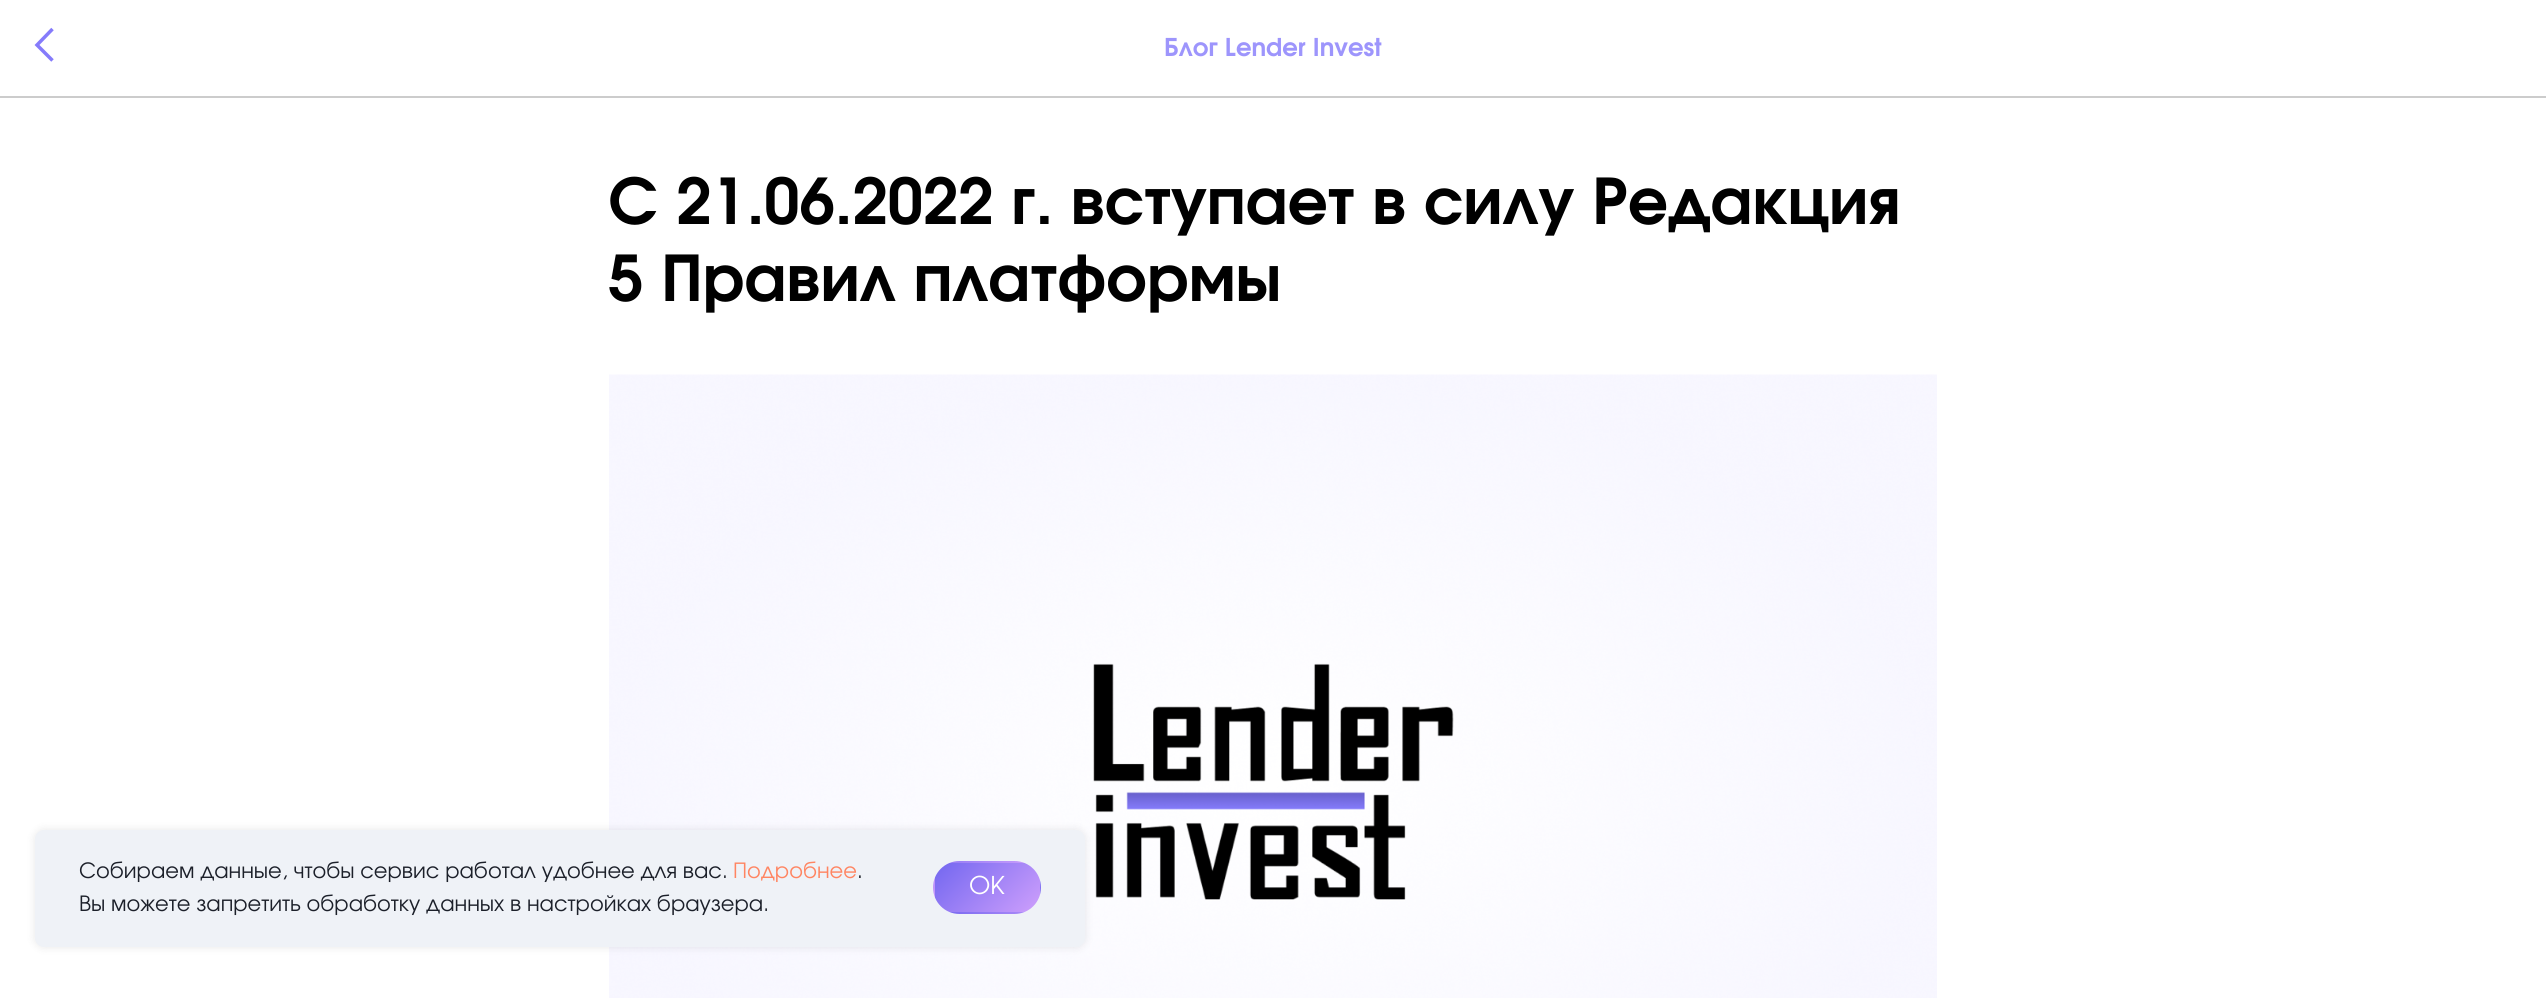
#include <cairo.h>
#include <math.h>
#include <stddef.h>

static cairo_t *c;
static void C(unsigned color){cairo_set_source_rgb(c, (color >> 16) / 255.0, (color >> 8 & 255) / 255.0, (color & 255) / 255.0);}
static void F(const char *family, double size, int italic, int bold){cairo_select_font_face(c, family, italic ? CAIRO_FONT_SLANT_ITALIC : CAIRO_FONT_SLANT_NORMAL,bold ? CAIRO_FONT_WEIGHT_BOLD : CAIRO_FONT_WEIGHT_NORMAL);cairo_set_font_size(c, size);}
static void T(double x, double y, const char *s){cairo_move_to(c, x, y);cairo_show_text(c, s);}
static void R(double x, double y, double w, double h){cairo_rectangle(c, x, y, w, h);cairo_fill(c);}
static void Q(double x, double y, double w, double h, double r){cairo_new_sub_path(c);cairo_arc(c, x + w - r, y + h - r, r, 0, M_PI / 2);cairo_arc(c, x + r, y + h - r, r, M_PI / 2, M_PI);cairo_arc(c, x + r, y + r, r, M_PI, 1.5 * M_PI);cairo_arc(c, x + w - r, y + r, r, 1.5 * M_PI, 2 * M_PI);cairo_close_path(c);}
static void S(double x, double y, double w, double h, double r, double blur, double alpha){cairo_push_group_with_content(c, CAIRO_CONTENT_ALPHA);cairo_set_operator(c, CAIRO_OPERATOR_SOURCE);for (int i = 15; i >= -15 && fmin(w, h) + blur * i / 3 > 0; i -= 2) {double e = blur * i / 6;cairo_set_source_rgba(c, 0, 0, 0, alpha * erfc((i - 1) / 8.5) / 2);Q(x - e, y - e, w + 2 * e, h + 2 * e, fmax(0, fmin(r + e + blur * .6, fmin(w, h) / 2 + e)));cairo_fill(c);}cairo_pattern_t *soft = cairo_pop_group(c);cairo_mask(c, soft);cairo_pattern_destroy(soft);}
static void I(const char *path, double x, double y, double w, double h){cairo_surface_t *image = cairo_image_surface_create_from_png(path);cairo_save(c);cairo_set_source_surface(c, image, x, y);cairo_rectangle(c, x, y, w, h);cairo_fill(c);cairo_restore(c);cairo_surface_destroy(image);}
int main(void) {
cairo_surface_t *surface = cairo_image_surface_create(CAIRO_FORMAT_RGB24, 2546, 998);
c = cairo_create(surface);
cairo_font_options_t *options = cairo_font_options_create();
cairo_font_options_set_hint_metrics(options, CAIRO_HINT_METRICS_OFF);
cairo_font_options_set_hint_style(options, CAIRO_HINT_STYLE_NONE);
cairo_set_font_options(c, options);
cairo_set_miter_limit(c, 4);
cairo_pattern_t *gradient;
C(0xffffff);
cairo_paint(c);
C(0xcccccc);
R(0,96,2546,2);
cairo_new_path(c);
cairo_move_to(c,52.5,60.5);
cairo_line_to(c,37,45);
cairo_line_to(c,52.5,29);
C(0x857bfb);
cairo_set_line_width(c,3.5);
cairo_stroke(c);
F("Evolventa",24.5,0,1);
C(0x9d95fc);
T(1164,56,"Блог Lender Invest");
F("Evolventa",63,0,1);
C(0x000000);
T(608,224,"С 21.06.2022 г. вступает в силу Редакция");
T(608,301,"5 Правил платформы");
I("1.png",609,374,1328,624);
C(0x000000);
S(35,830,1050,117,9,4.5,.1);
C(0xeff2f7);
Q(35,830,1050,117,9);
cairo_fill(c);
F("Evolventa",21,0,0);
C(0x1c202a);
T(79,878,"Собираем данные, чтобы сервис работал удобнее для вас.");
C(0xff8562);
T(733,878,"Подробнее");
C(0x1c202a);
T(857,878,".");
T(79,911,"Вы можете запретить обработку данных в настройках браузера.");
cairo_save(c);
Q(933,861,108,53,26.5);
cairo_clip(c);
gradient = cairo_pattern_create_linear(949,800,1026,877);
cairo_pattern_add_color_stop_rgba(gradient,0,0.451,0.404,0.941,1);
cairo_pattern_add_color_stop_rgba(gradient,1,0.808,0.624,0.988,1);
cairo_set_source(c,gradient);
cairo_pattern_destroy(gradient);
R(949,861,76,2);
gradient = cairo_pattern_create_linear(844,849,921,926);
cairo_pattern_add_color_stop_rgba(gradient,0,0.451,0.404,0.941,1);
cairo_pattern_add_color_stop_rgba(gradient,1,0.808,0.624,0.988,1);
cairo_set_source(c,gradient);
cairo_pattern_destroy(gradient);
R(933,877,2,21);
gradient = cairo_pattern_create_linear(949,849,1026,926);
cairo_pattern_add_color_stop_rgba(gradient,0,0.451,0.404,0.941,1);
cairo_pattern_add_color_stop_rgba(gradient,1,0.808,0.624,0.988,1);
cairo_set_source(c,gradient);
cairo_pattern_destroy(gradient);
R(935,863,105,49);
gradient = cairo_pattern_create_linear(1054,849,1131,926);
cairo_pattern_add_color_stop_rgba(gradient,0,0.451,0.404,0.941,1);
cairo_pattern_add_color_stop_rgba(gradient,1,0.808,0.624,0.988,1);
cairo_set_source(c,gradient);
cairo_pattern_destroy(gradient);
R(1040,880,1,15);
gradient = cairo_pattern_create_linear(949,898,1026,975);
cairo_pattern_add_color_stop_rgba(gradient,0,0.451,0.404,0.941,1);
cairo_pattern_add_color_stop_rgba(gradient,1,0.808,0.624,0.988,1);
cairo_set_source(c,gradient);
cairo_pattern_destroy(gradient);
R(949,912,76,2);
cairo_restore(c);
cairo_save(c);
cairo_rectangle(c,970,872,35,33);
cairo_clip(c);
F("Evolventa",24.5,0,0);
C(0xffffff);
T(969,894,"OK");
cairo_restore(c);
cairo_surface_write_to_png(surface, "o.png");
cairo_font_options_destroy(options);
cairo_destroy(c);
cairo_surface_destroy(surface);
return 0;
}
